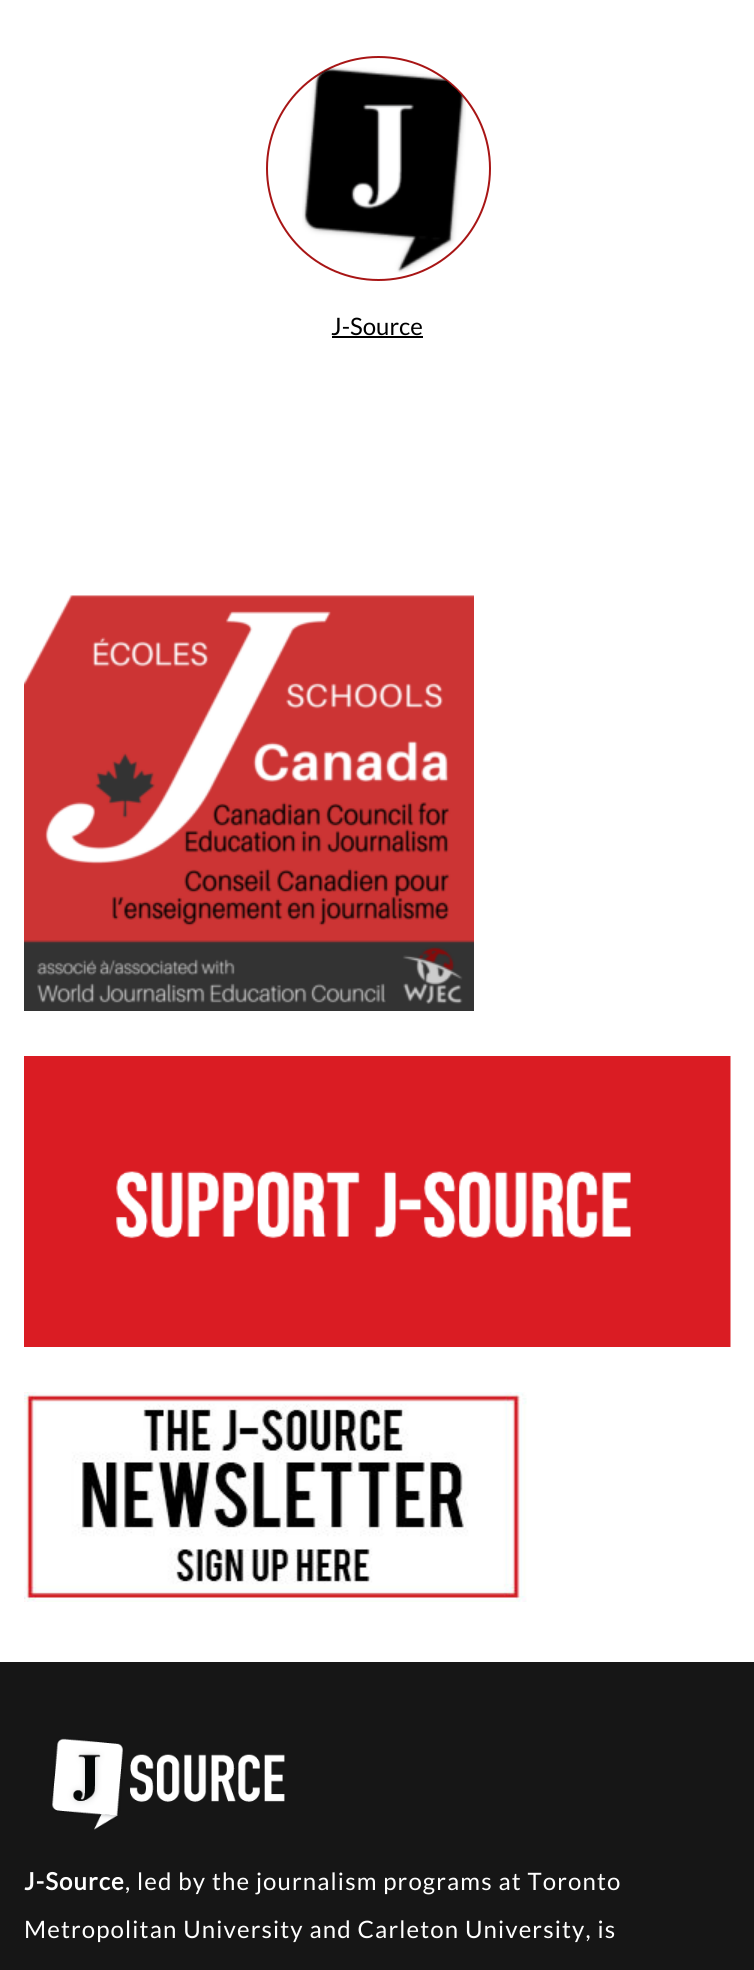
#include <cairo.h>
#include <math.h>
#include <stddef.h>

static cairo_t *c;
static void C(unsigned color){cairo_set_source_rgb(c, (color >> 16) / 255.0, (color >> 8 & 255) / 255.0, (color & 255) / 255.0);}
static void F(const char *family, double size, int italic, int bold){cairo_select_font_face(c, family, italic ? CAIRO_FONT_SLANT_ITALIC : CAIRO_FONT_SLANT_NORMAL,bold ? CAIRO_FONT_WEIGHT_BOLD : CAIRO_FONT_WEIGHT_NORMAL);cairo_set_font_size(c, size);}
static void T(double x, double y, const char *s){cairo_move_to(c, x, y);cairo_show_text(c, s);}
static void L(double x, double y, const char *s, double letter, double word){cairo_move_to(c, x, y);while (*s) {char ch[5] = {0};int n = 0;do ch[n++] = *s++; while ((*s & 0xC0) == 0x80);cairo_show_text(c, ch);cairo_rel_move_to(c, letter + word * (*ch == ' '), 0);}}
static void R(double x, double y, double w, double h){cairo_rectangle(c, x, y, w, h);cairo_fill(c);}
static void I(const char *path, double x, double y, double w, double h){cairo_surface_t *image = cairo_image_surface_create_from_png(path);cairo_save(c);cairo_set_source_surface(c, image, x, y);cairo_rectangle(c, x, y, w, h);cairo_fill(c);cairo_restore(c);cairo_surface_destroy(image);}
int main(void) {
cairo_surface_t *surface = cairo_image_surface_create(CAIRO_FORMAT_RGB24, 754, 1970);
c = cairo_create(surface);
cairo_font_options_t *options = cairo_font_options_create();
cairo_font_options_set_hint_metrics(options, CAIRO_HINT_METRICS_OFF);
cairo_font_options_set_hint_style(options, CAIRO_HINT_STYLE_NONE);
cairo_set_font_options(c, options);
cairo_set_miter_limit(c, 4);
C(0xffffff);
cairo_paint(c);
cairo_arc(c,378.5,168.5,111.5,0,2 * M_PI);
C(0xa81515);
cairo_stroke(c);
I("1.png",302,67,164,206);
F("Lato",24,0,0);
C(0x000000);
T(331,335,"J-Source");
R(332,336,91,2);
I("2.png",24,595,450,416);
I("3.png",24,1056,707,291);
I("4.png",24,1392,503,210);
C(0x161616);
R(0,1662,754,308);
I("5.png",52,1738,233,92);
F("Lato",24,0,1);
C(0xffffff);
L(24,1890,"J-Source",1.12,0);
F("Lato",24,0,0);
L(125,1890,", led by the journalism programs at Toronto",1.12,0);
L(24,1938,"Metropolitan University and Carleton University, is",1.12,0);
cairo_surface_write_to_png(surface, "o.png");
cairo_font_options_destroy(options);
cairo_destroy(c);
cairo_surface_destroy(surface);
return 0;
}
